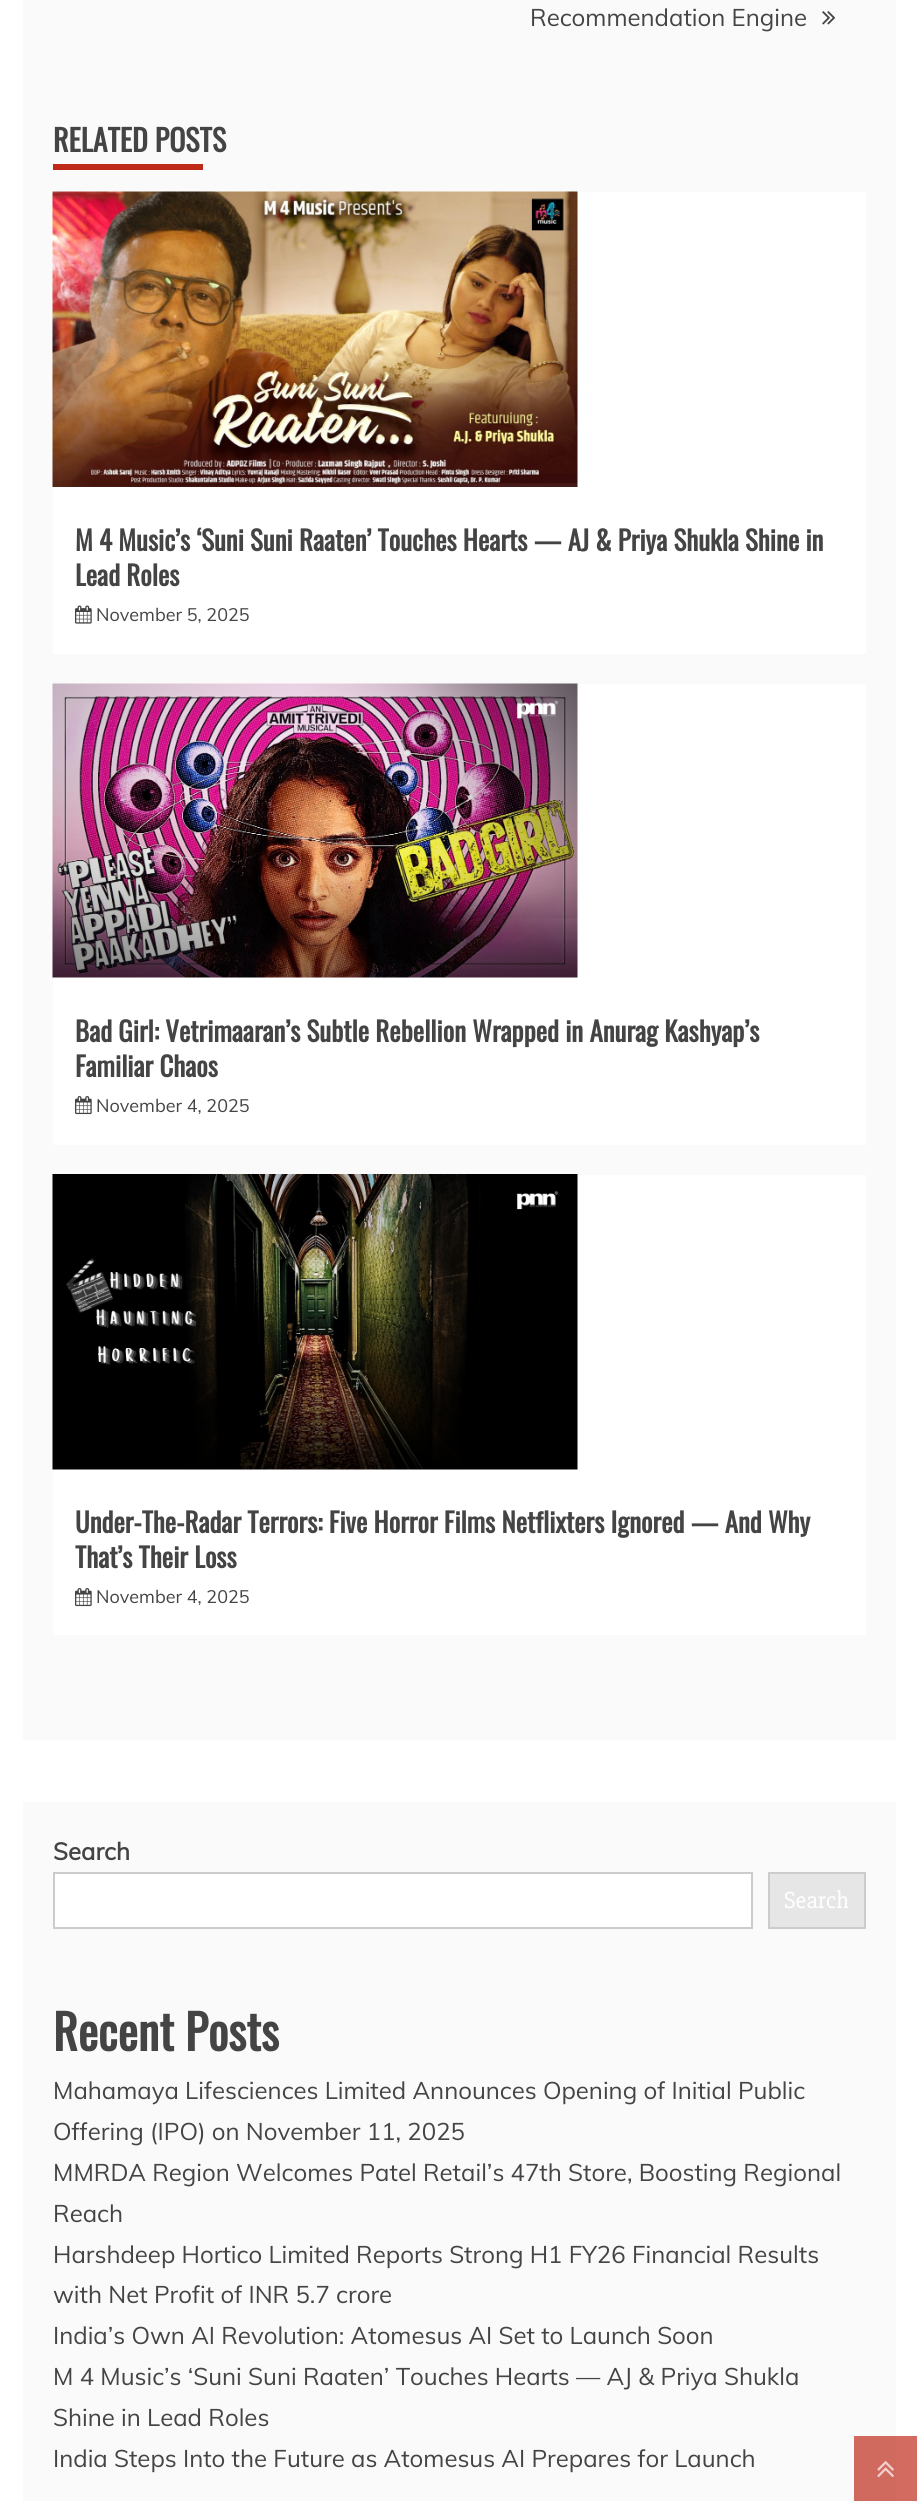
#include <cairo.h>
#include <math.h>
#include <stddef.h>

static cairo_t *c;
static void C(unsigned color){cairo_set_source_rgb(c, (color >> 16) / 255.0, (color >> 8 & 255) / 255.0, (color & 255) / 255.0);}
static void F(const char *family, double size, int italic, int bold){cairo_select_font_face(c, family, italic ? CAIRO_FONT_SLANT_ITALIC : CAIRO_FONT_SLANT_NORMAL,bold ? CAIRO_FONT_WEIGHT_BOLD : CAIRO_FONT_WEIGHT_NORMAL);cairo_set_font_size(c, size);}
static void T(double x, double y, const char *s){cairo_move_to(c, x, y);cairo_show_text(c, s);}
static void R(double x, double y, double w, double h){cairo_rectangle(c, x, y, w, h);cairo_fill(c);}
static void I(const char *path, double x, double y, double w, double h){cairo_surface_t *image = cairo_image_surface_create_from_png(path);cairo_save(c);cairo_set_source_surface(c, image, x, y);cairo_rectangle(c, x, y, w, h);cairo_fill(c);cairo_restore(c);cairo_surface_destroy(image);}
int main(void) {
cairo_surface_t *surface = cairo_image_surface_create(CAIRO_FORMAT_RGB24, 917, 2501);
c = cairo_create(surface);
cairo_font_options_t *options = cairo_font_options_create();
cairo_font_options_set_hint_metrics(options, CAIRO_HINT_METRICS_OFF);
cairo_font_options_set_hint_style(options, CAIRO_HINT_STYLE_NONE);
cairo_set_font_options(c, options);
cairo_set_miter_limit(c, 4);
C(0xffffff);
cairo_paint(c);
C(0xd36b60);
R(896,2436,21,65);
C(0xfafafa);
R(23,0,873,1740);
F("Muli",24,0,0);
C(0x444444);
T(530,26,"Recommendation Engine");
I("1.png",822,11,14,14);
F("Oswald",30,0,1);
T(53,152,"RELATED POSTS");
C(0xbf2918);
R(53,164,150,6);
C(0xffffff);
R(53,192,813,462);
I("2.png",52,191,526,296);
F("Oswald",27,0,1);
C(0x444444);
T(75,551,"M 4 Music’s ‘Suni Suni Raaten’ Touches Hearts — AJ & Priya Shukla Shine in");
T(75,586,"Lead Roles");
I("3.png",75,605,17,19);
F("Muli",18,0,0);
T(96,621,"November 5, 2025");
C(0xffffff);
R(53,684,813,461);
I("4.png",52,683,526,295);
F("Oswald",27,0,1);
C(0x444444);
T(75,1042,"Bad Girl: Vetrimaaran’s Subtle Rebellion Wrapped in Anurag Kashyap’s");
T(75,1077,"Familiar Chaos");
I("5.png",75,1096,17,19);
F("Muli",18,0,0);
T(96,1112,"November 4, 2025");
C(0xffffff);
R(53,1175,813,460);
I("6.png",52,1174,526,296);
F("Oswald",27,0,1);
C(0x444444);
T(75,1533,"Under-The-Radar Terrors: Five Horror Films Netflixters Ignored — And Why");
T(75,1568,"That’s Their Loss");
I("5.png",75,1588,17,19);
F("Muli",18,0,0);
T(96,1603,"November 4, 2025");
C(0xfafafa);
R(23,1802,873,699);
C(0xd16a5e);
R(854,2436,42,65);
F("Muli",24,0,1);
C(0x444444);
T(53,1860,"Search");
C(0xffffff);
cairo_rectangle(c,54,1873,698,55);
cairo_fill_preserve(c);
C(0xcccccc);
cairo_stroke(c);
C(0xe6e6e6);
cairo_rectangle(c,769,1873,96,55);
cairo_fill_preserve(c);
C(0xcccccc);
cairo_stroke(c);
F("Slabo 27px",24,0,0);
C(0xffffff);
T(784,1908,"Search");
F("Oswald",48,0,1);
C(0x444444);
T(53,2051,"Recent Posts");
F("Muli",24,0,0);
T(53,2099,"Mahamaya Lifesciences Limited Announces Opening of Initial Public");
T(53,2140,"Offering (IPO) on November 11, 2025");
T(53,2181,"MMRDA Region Welcomes Patel Retail’s 47th Store, Boosting Regional");
T(53,2222,"Reach");
T(53,2263,"Harshdeep Hortico Limited Reports Strong H1 FY26 Financial Results");
T(53,2303,"with Net Profit of INR 5.7 crore");
T(53,2344,"India’s Own AI Revolution: Atomesus AI Set to Launch Soon");
T(53,2385,"M 4 Music’s ‘Suni Suni Raaten’ Touches Hearts — AJ & Priya Shukla");
T(53,2426,"Shine in Lead Roles");
T(53,2467,"India Steps Into the Future as Atomesus AI Prepares for Launch");
I("7.png",877,2461,17,17);
cairo_surface_write_to_png(surface, "o.png");
cairo_font_options_destroy(options);
cairo_destroy(c);
cairo_surface_destroy(surface);
return 0;
}
